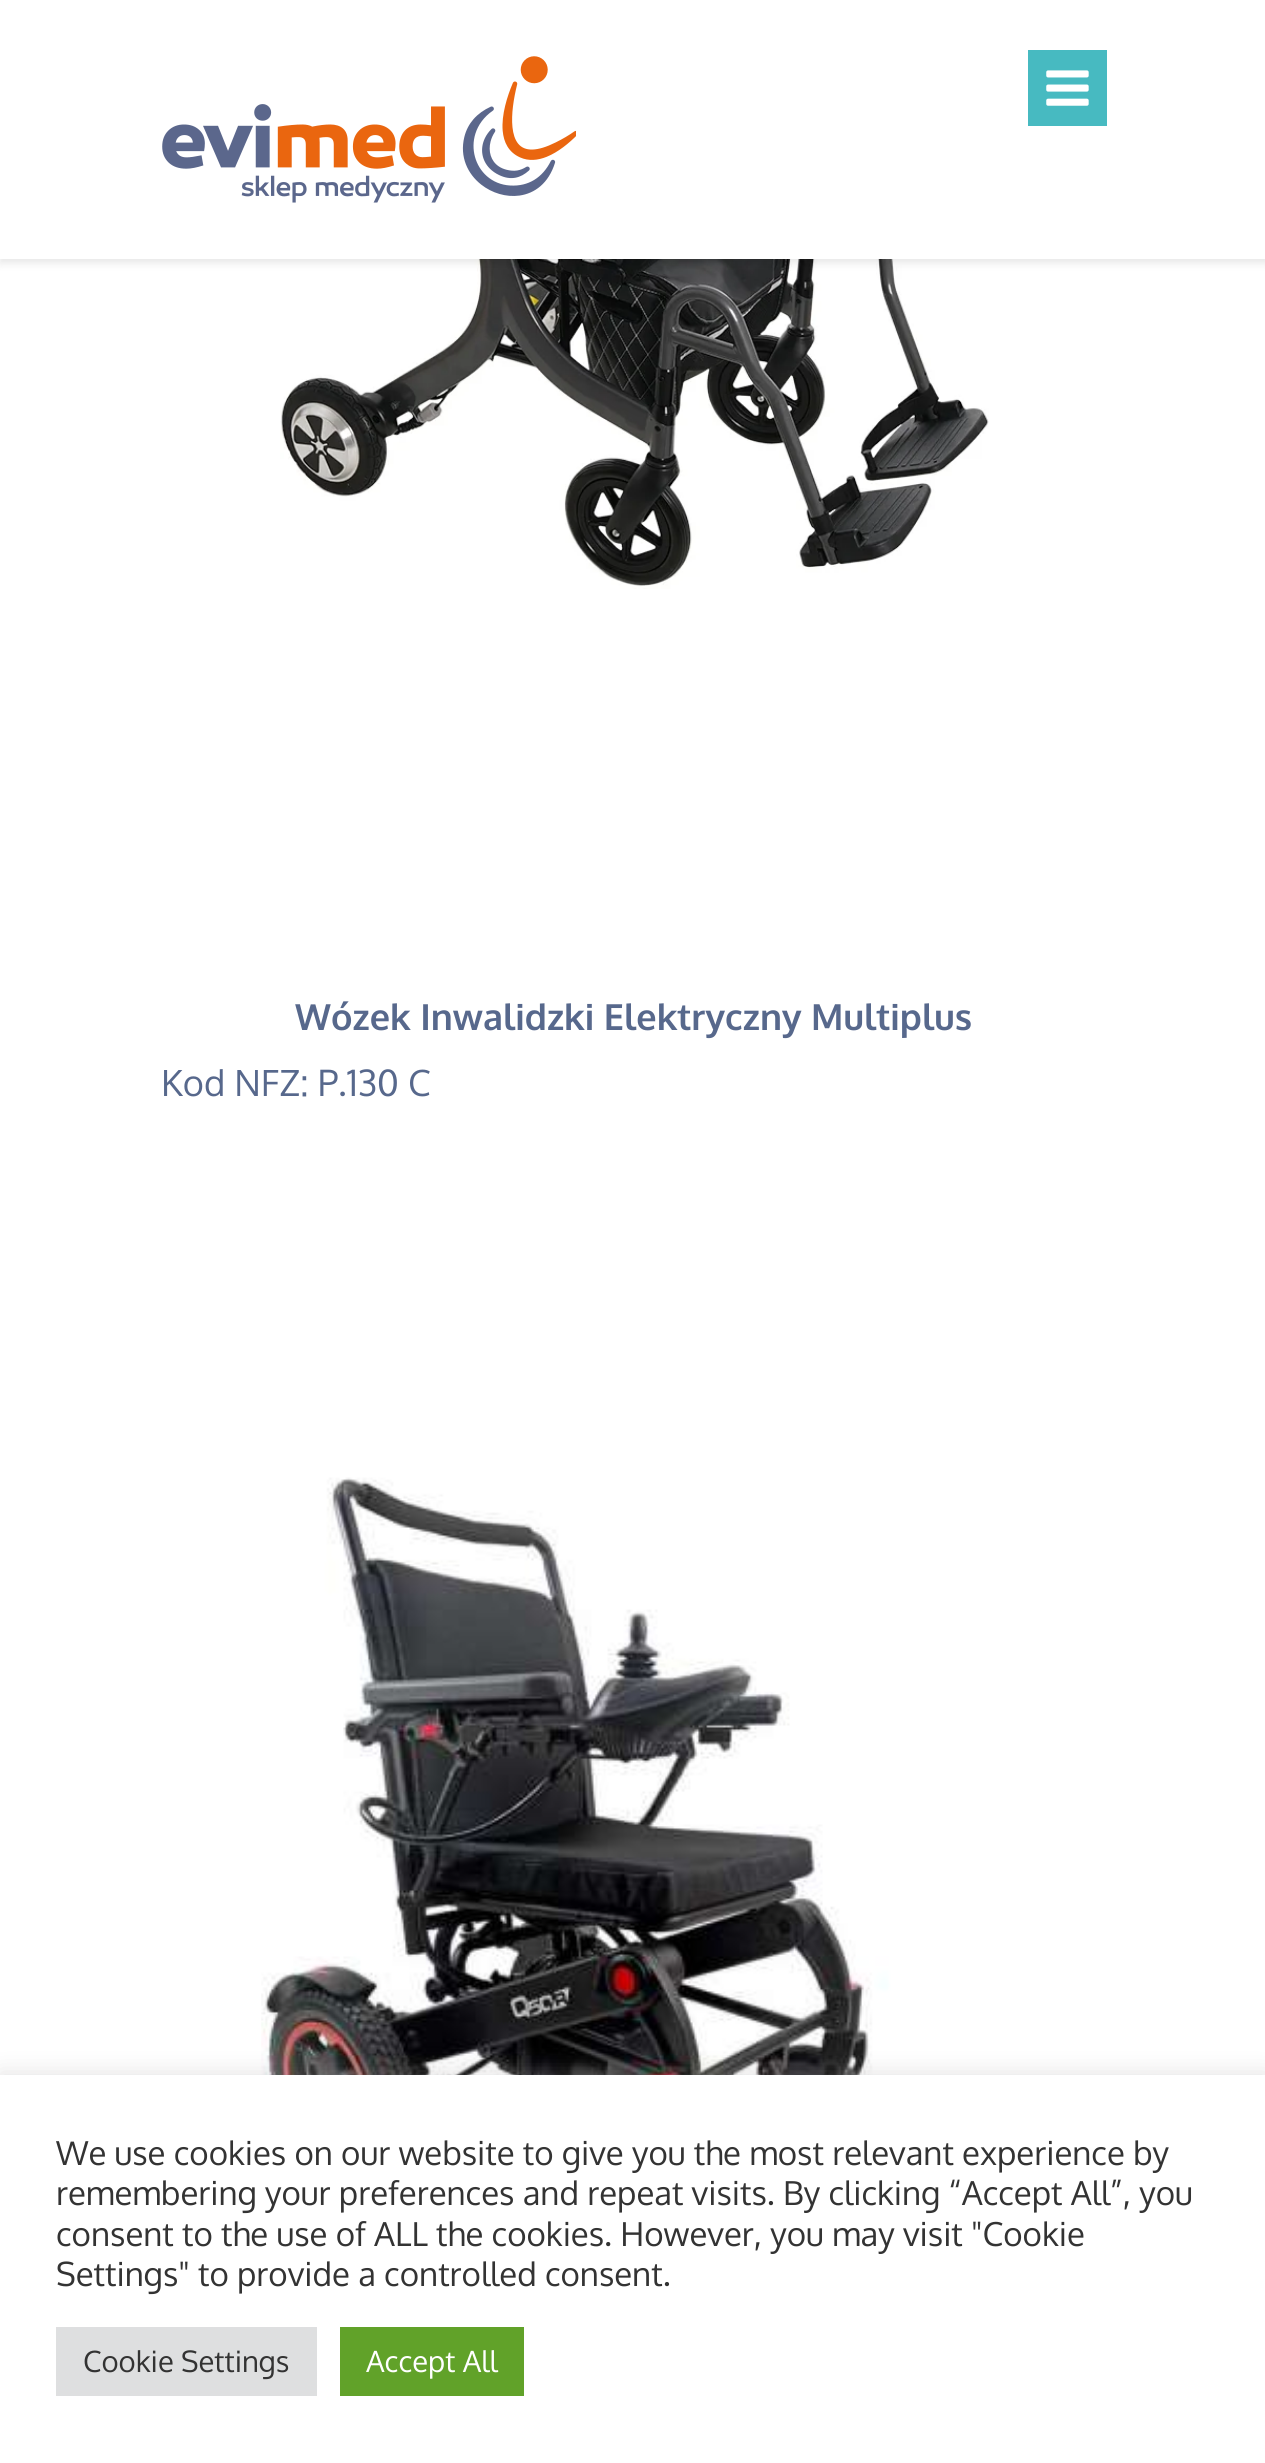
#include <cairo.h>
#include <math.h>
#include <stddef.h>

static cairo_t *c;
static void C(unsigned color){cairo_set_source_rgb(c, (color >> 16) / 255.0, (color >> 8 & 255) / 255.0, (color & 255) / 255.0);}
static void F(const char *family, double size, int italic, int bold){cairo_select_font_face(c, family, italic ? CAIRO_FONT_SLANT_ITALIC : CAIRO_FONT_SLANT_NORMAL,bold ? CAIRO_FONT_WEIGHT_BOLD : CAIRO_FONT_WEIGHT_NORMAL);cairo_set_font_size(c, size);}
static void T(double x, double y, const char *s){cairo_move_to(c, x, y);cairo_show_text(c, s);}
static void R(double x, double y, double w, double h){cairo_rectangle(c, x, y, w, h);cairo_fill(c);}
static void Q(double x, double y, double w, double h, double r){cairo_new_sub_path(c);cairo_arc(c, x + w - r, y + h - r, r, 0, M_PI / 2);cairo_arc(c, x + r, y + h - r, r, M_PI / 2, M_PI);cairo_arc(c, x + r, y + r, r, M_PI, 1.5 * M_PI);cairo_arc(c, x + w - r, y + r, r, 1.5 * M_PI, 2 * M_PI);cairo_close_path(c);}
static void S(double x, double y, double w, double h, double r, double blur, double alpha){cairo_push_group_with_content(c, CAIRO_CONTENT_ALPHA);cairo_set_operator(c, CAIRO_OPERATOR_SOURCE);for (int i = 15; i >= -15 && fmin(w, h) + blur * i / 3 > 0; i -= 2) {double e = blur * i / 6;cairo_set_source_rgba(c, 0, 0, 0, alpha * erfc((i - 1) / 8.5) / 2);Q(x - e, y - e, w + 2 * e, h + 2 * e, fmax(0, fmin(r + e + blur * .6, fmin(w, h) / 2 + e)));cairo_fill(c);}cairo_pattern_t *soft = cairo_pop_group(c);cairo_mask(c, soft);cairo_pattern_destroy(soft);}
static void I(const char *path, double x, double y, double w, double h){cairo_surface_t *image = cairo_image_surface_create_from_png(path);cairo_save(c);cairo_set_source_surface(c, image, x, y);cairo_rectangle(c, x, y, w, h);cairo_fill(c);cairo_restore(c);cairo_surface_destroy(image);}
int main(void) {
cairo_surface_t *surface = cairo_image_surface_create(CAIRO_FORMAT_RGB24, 1265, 2463);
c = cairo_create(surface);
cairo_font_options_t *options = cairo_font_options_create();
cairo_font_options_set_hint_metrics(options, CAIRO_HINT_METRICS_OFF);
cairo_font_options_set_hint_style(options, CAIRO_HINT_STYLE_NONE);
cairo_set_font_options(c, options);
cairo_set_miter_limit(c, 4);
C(0xffffff);
cairo_paint(c);
I("3.png",280,259,709,330);
C(0x000000);
S(0,5,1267,258,0,4.5,.1);
C(0xffffff);
R(0,0,1265,259);
I("1.png",162,56,414,147);
C(0x47bac1);
R(1028,50,79,76);
I("2.png",1046,70,43,36);
F("Oxygen",36,0,1);
C(0x57688c);
T(295,1030,"Wózek Inwalidzki Elektryczny Multiplus");
F("Oxygen",36,0,0);
T(161,1096,"Kod NFZ: P.130 C");
I("4.png",261,1477,727,598);
C(0xacabab);
S(0,2072,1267,390,0,11,.3);
C(0xffffff);
R(0,2075,1265,388);
F("Oxygen",33,0,0);
C(0x333333);
T(56,2165,"We use cookies on our website to give you the most relevant experience by");
T(56,2205,"remembering your preferences and repeat visits. By clicking “Accept All”, you");
T(56,2246,"consent to the use of ALL the cookies. However, you may visit \"Cookie");
T(56,2286,"Settings\" to provide a controlled consent.");
C(0xdedfe0);
R(56,2327,261,69);
F("Oxygen",29.25,0,0);
C(0x333333);
T(83,2372,"Cookie Settings");
C(0x61a229);
R(340,2327,184,69);
C(0xffffff);
T(366,2372,"Accept All");
cairo_surface_write_to_png(surface, "o.png");
cairo_font_options_destroy(options);
cairo_destroy(c);
cairo_surface_destroy(surface);
return 0;
}
